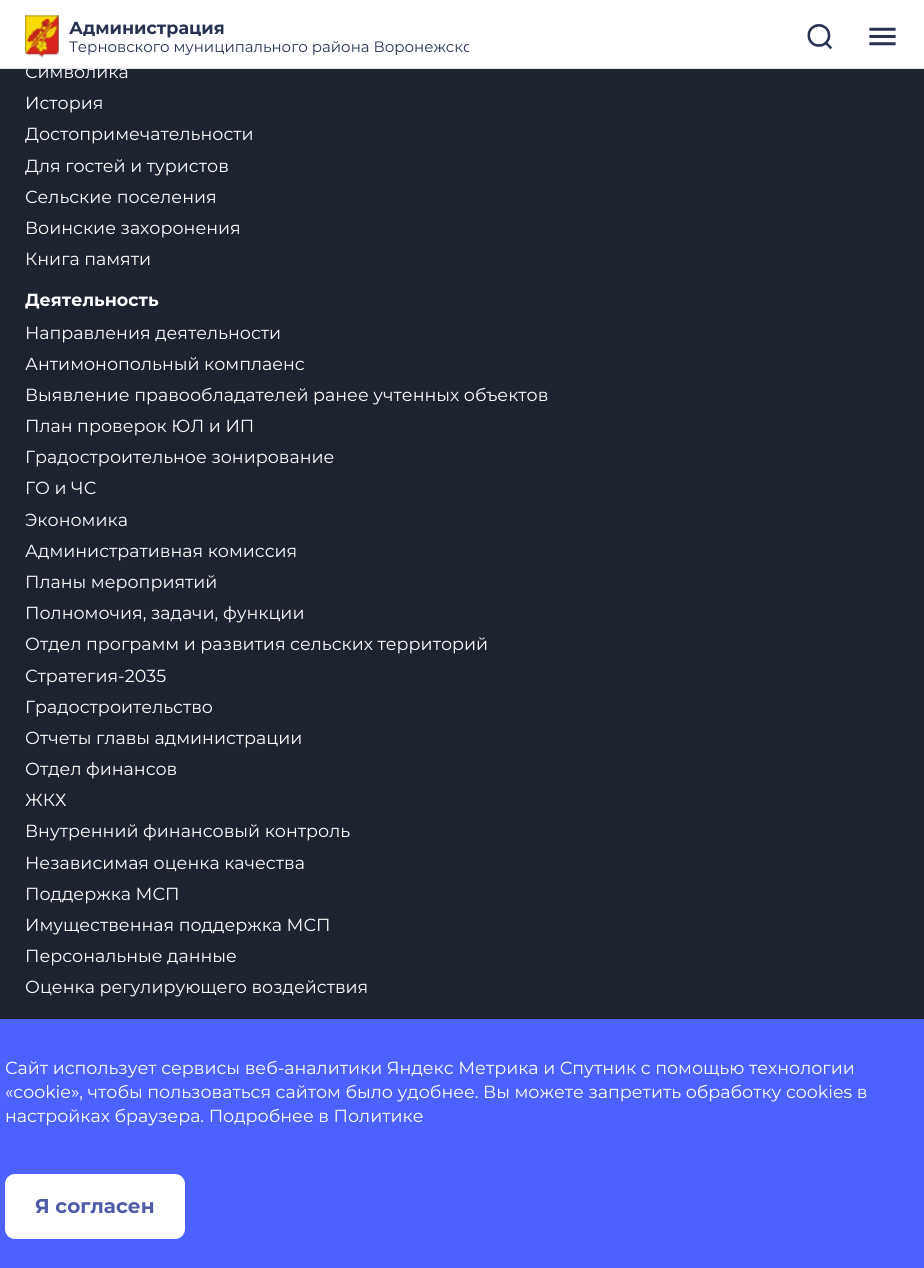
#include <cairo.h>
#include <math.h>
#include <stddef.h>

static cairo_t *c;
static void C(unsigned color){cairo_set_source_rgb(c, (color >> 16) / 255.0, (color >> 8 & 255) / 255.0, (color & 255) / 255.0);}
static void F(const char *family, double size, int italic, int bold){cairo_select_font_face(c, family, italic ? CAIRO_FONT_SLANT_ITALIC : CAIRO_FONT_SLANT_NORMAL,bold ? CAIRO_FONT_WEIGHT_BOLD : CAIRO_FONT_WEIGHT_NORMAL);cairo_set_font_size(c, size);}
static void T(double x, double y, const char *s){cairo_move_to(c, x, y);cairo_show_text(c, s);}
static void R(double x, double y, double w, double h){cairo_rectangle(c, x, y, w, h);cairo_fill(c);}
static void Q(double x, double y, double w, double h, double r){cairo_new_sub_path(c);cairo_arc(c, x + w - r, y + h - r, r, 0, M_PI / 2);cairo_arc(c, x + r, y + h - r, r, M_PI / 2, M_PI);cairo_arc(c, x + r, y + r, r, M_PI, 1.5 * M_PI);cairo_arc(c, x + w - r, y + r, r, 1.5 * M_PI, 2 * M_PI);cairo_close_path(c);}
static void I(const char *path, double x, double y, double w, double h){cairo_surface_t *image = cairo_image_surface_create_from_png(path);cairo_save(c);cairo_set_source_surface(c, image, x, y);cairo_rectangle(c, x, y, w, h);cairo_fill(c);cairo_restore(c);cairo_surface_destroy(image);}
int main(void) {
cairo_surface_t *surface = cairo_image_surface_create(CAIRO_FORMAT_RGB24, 924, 1268);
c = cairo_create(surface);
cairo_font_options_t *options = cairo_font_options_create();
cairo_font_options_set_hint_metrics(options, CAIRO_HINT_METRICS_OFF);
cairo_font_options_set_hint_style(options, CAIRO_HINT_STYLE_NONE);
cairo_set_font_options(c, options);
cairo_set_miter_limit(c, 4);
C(0x1d232f);
cairo_paint(c);
C(0xffffff);
R(0,0,924,68);
F("Montserrat",17.5,0,0);
T(25,78,"Символика");
C(0xe3e3e3);
R(0,68,924,1);
I("1.png",25,15,34,43);
F("Montserrat",17.5,0,1);
C(0x273350);
T(69,34,"Администрация");
cairo_save(c);
cairo_rectangle(c,69,40,400,15);
cairo_clip(c);
F("Montserrat",15,0,0);
T(69,52,"Терновского муниципального района Воронежско");
cairo_restore(c);
I("2.png",807,24,26,26);
I("3.png",869,27,27,19);
F("Montserrat",17.5,0,0);
C(0xffffff);
T(25,109,"История");
T(25,140,"Достопримечательности");
T(25,172,"Для гостей и туристов");
T(25,203,"Сельские поселения");
T(25,234,"Воинские захоронения");
T(25,265,"Книга памяти");
F("Montserrat",17.5,0,1);
T(25,306,"Деятельность");
F("Montserrat",17.5,0,0);
T(25,339,"Направления деятельности");
T(25,370,"Антимонопольный комплаенс");
T(25,401,"Выявление правообладателей ранее учтенных объектов");
T(25,432,"План проверок ЮЛ и ИП");
T(25,463,"Градостроительное зонирование");
T(25,494,"ГО и ЧС");
T(25,526,"Экономика");
T(25,557,"Административная комиссия");
T(25,588,"Планы мероприятий");
T(25,619,"Полномочия, задачи, функции");
T(25,650,"Отдел программ и развития сельских территорий");
T(25,682,"Стратегия-2035");
T(25,713,"Градостроительство");
T(25,744,"Отчеты главы администрации");
T(25,775,"Отдел финансов");
T(25,806,"ЖКХ");
T(25,837,"Внутренний финансовый контроль");
T(25,869,"Независимая оценка качества");
T(25,900,"Поддержка МСП");
T(25,931,"Имущественная поддержка МСП");
T(25,962,"Персональные данные");
T(25,993,"Оценка регулирующего воздействия");
C(0x4b62ff);
R(0,1019,924,249);
C(0xffffff);
T(5,1074,"Сайт использует сервисы веб-аналитики Яндекс Метрика и Спутник с помощью технологии");
T(5,1098,"«cookie», чтобы пользоваться сайтом было удобнее. Вы можете запретить обработку cookies в");
T(5,1122,"настройках браузера. Подробнее в Политике");
Q(5,1174,180,65,10);
cairo_fill(c);
F("Montserrat",20,0,1);
C(0x4f5aa8);
T(35,1213,"Я согласен");
cairo_surface_write_to_png(surface, "o.png");
cairo_font_options_destroy(options);
cairo_destroy(c);
cairo_surface_destroy(surface);
return 0;
}
